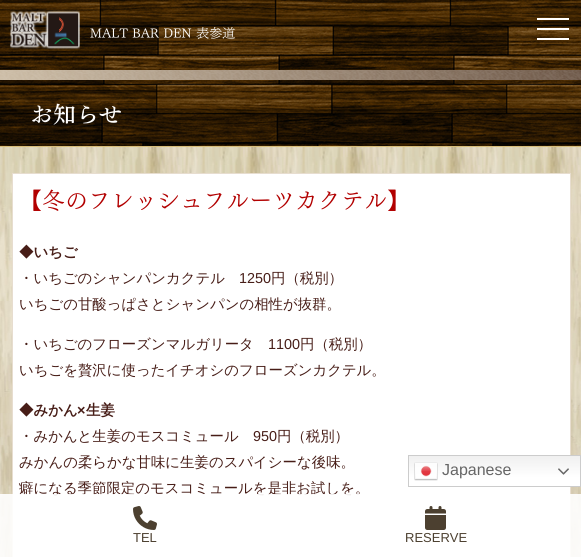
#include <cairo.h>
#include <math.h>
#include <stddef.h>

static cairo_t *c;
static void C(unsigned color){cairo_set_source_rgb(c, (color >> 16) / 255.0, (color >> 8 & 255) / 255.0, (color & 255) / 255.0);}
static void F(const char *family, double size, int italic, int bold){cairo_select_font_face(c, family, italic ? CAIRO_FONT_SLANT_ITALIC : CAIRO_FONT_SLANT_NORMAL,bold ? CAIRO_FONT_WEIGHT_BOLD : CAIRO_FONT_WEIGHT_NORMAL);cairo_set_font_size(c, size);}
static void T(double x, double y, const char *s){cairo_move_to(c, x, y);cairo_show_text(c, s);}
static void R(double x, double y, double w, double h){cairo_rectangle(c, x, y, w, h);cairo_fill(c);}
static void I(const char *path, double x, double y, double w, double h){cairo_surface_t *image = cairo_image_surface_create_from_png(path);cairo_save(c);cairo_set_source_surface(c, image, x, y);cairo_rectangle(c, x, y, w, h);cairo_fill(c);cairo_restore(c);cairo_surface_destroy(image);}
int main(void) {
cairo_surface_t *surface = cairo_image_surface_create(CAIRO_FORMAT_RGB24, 581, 557);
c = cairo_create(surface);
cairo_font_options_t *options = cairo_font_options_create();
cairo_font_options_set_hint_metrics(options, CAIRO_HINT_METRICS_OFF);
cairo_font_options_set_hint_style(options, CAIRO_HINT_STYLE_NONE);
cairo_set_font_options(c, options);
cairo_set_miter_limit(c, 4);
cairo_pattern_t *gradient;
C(0xffffff);
cairo_paint(c);
I("1.png",0,0,581,146);
I("2.png",0,70,581,10);
C(0xd7bd7a);
R(0,146,581,1);
F("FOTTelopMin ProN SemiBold",23,0,0);
C(0xffffff);
T(30,123,"お知らせ");
I("3.png",10,10,70,39);
F("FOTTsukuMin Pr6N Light",13,0,0);
T(90,38,"MALT BAR DEN 表参道");
R(537,28,32,2);
R(537,18,32,2);
R(537,38,32,2);
I("6.png",0,147,581,410);
cairo_rectangle(c,12.5,173.5,558,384);
cairo_fill_preserve(c);
C(0xe7ddcf);
cairo_set_line_width(c,1);
cairo_stroke(c);
gradient = cairo_pattern_create_linear(495,455,495,487);
cairo_pattern_add_color_stop_rgba(gradient,0,0.937,0.937,0.937,1);
cairo_pattern_add_color_stop_rgba(gradient,.7,1,1,1,1);
cairo_set_source(c,gradient);
cairo_pattern_destroy(gradient);
R(409,456,171,30);
cairo_rectangle(c,408.5,455.5,172,31);
C(0xcccccc);
cairo_stroke(c);
I("4.png",414,462,24,19);
F("Liberation Sans",16,0,0);
C(0x666666);
T(442,475,"Japanese");
I("5.png",558,468,11,7);
F("FOTTsukuMin Pr6N Light",23,0,0);
C(0xb20000);
T(19,209,"【冬のフレッシュフルーツカクテル】");
F("WenQuanYi Zen Hei",14.4,0,1);
C(0x471d17);
T(19,257,"◆いちご");
F("WenQuanYi Zen Hei Medium",14.4,0,0);
T(19,283,"・いちごのシャンパンカクテル");
F("Liberation Sans",14.4,0,0);
T(239,283,"1250");
F("WenQuanYi Zen Hei Medium",14.4,0,0);
T(271,283,"円（税別）");
T(19,309,"いちごの甘酸っぱさとシャンパンの相性が抜群。");
T(19,349,"・いちごのフローズンマルガリータ");
F("Liberation Sans",14.4,0,0);
T(268,349,"1100");
F("WenQuanYi Zen Hei Medium",14.4,0,0);
T(300,349,"円（税別）");
T(19,375,"いちごを贅沢に使ったイチオシのフローズンカクテル。");
F("WenQuanYi Zen Hei",14.4,0,1);
T(19,415,"◆みかん");
F("Liberation Sans",14.4,0,1);
T(77,415,"×");
F("WenQuanYi Zen Hei",14.4,0,1);
T(86,415,"生姜");
F("WenQuanYi Zen Hei Medium",14.4,0,0);
T(19,441,"・みかんと生姜のモスコミュール");
F("Liberation Sans",14.4,0,0);
T(253,441,"950");
F("WenQuanYi Zen Hei Medium",14.4,0,0);
T(277,441,"円（税別）");
T(19,467,"みかんの柔らかな甘味に生姜のスパイシーな後味。");
T(19,493,"癖になる季節限定のモスコミュールを是非お試しを。");
cairo_set_source_rgba(c,1,1,1,0.9);
R(0,494,581,63);
I("7.png",133,506,24,24);
F("Liberation Sans",13,0,0);
C(0x4c4030);
T(133,542,"TEL");
I("8.png",425,506,21,24);
T(405,542,"RESERVE");
cairo_surface_write_to_png(surface, "o.png");
cairo_font_options_destroy(options);
cairo_destroy(c);
cairo_surface_destroy(surface);
return 0;
}
